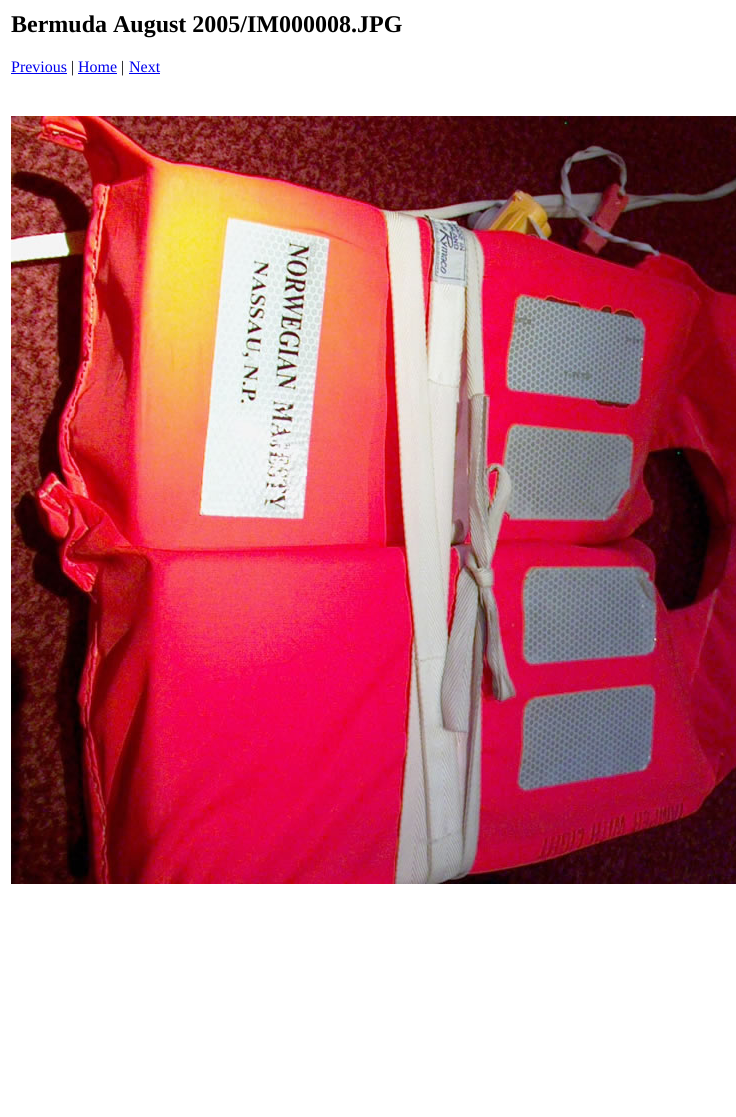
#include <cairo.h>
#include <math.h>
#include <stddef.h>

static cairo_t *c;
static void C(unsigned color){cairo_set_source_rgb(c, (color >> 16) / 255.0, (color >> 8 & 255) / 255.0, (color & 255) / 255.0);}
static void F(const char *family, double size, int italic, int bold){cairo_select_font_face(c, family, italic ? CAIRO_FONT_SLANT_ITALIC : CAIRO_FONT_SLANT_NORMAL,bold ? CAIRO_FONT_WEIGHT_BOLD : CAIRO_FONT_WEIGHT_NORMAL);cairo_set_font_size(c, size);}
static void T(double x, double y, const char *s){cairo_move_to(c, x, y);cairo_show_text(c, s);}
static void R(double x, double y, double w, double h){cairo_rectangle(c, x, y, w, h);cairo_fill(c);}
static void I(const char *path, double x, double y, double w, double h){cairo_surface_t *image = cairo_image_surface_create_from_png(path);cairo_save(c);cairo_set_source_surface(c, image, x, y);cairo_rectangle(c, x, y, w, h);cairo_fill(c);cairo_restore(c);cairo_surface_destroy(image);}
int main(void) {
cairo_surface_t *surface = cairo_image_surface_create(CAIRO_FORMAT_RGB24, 736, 1117);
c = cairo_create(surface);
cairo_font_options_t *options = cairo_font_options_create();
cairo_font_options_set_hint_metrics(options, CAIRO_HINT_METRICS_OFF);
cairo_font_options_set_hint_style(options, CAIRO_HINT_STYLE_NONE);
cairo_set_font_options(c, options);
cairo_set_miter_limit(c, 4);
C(0xffffff);
cairo_paint(c);
F("Liberation Serif",24,0,1);
C(0x000000);
T(11,32,"Bermuda August 2005/IM000008.JPG");
F("Liberation Serif",16,0,0);
C(0x0000ee);
T(11,72,"Previous");
R(11,73,56,1);
C(0x000000);
T(71,72,"|");
C(0x0000ee);
T(78,72,"Home");
R(78,73,39,1);
C(0x000000);
T(121,72,"|");
C(0x0000ee);
T(129,72,"Next");
R(129,73,31,1);
I("1.png",11,116,725,768);
cairo_surface_write_to_png(surface, "o.png");
cairo_font_options_destroy(options);
cairo_destroy(c);
cairo_surface_destroy(surface);
return 0;
}
